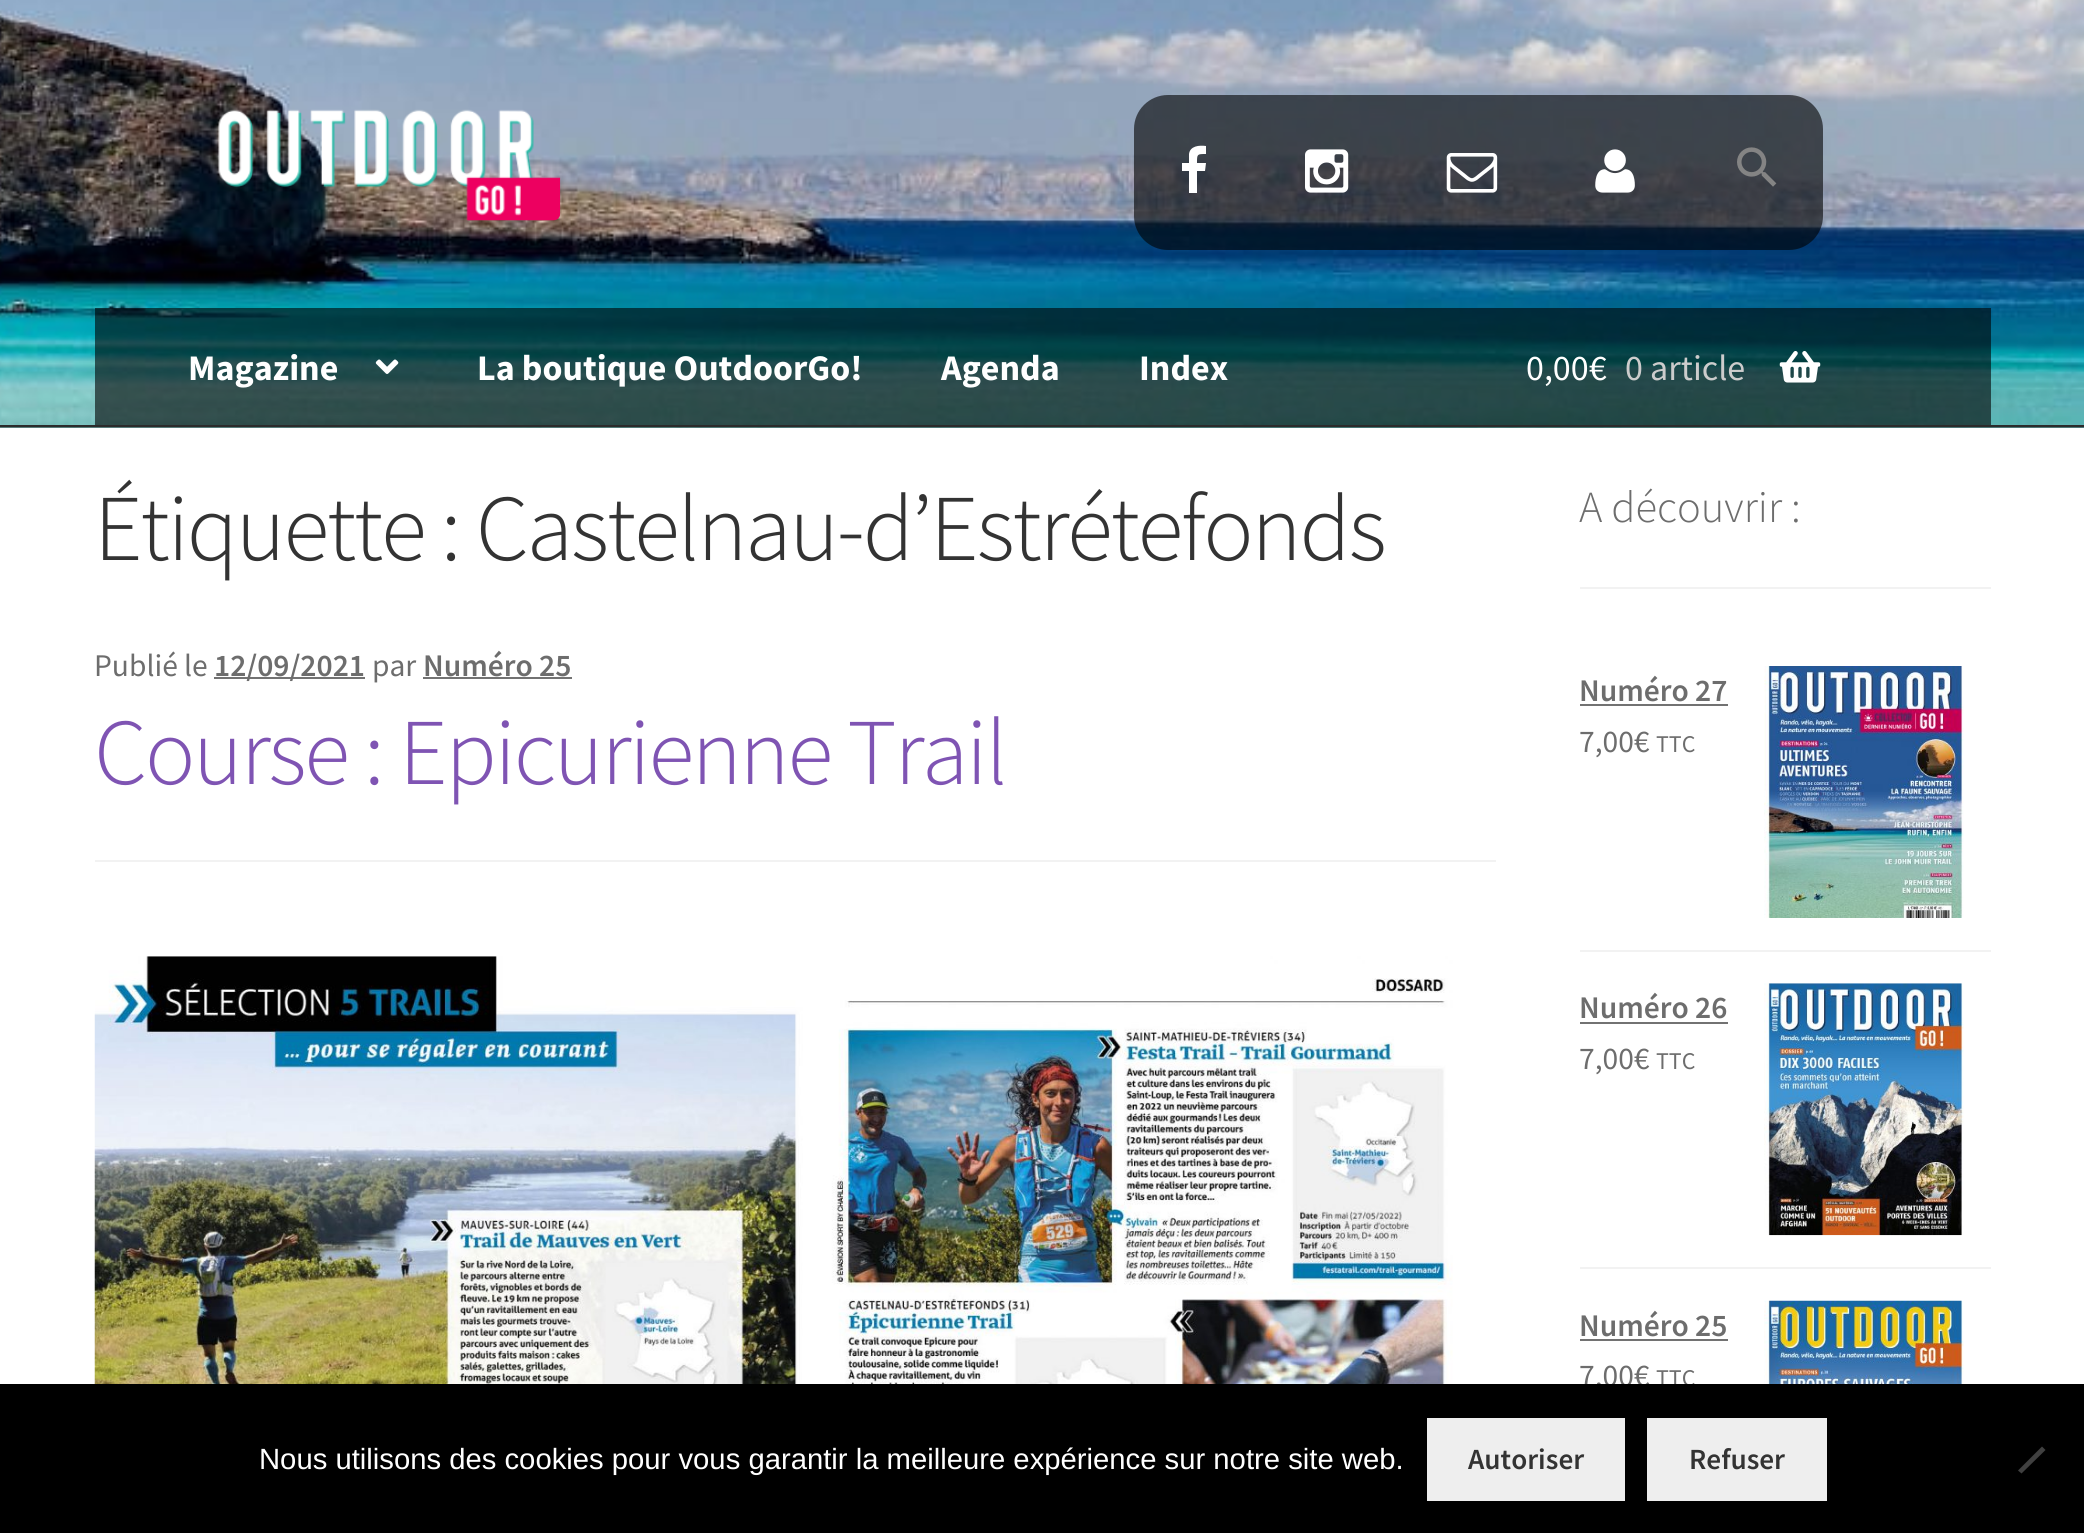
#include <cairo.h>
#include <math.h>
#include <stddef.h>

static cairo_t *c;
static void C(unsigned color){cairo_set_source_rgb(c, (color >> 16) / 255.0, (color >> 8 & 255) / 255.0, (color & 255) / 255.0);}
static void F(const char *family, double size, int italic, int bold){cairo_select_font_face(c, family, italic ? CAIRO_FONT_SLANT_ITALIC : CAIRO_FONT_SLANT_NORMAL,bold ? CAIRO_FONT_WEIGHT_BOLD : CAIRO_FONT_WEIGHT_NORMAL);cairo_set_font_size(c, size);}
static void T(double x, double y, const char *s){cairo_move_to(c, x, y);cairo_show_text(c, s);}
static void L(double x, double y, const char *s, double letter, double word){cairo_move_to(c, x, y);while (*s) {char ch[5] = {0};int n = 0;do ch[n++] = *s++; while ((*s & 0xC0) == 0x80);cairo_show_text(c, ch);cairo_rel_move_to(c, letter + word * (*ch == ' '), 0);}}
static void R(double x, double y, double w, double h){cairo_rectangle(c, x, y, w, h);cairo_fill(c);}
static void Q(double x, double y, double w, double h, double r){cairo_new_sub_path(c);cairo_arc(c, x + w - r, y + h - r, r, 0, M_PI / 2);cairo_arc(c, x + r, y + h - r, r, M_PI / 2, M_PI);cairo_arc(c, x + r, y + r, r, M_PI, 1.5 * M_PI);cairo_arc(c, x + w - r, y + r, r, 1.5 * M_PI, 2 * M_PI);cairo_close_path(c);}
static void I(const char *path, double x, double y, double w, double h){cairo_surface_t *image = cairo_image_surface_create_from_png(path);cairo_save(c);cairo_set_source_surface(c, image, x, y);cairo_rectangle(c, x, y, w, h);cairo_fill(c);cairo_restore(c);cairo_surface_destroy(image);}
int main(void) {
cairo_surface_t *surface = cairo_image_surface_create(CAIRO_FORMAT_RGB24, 2084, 1533);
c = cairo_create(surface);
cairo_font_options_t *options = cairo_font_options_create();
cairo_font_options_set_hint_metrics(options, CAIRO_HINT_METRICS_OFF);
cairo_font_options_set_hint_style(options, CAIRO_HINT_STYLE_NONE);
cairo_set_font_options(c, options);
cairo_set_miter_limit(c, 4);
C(0xffffff);
cairo_paint(c);
C(0x3a3a3a);
R(0,427,2084,1);
I("1.png",0,0,2084,428);
C(0x2b2b2b);
R(0,425,2084,2);
I("2.png",218,109,343,112);
cairo_set_source_rgba(c,0,0,0,0.6);
Q(1134,95,689,155,34);
cairo_fill(c);
C(0xffffff);
cairo_new_path(c);
cairo_move_to(c,1182,171);
cairo_line_to(c,1182,163);
cairo_line_to(c,1189,163);
cairo_line_to(c,1189,154);
cairo_curve_to(c,1190,146,1199,145,1206,146);
cairo_line_to(c,1206,154);
cairo_curve_to(c,1197,154,1197,154,1197,163);
cairo_line_to(c,1206,163);
cairo_line_to(c,1205,171);
cairo_line_to(c,1197,171);
cairo_line_to(c,1197,193);
cairo_line_to(c,1189,193);
cairo_line_to(c,1189,171);
cairo_close_path(c);
cairo_fill(c);
I("3.png",1305,149,44,44);
I("4.png",1446,153,52,40);
I("5.png",1595,149,40,44);
I("6.png",1737,147,40,40);
cairo_set_source_rgba(c,0,0,0,0.6);
R(95,308,1896,117);
F("Source Sans Pro",36,0,1);
C(0xffffff);
T(188,380,"Magazine");
I("7.png",375,359,24,15);
T(477,380,"La boutique OutdoorGo!");
T(941,380,"Agenda");
T(1139,380,"Index");
F("Source Sans Pro",36,0,0);
T(1526,380,"0,00€");
C(0xcccccc);
T(1625,380,"0 article");
I("8.png",1779,351,42,32);
F("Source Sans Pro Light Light",94.25,0,0);
C(0x333333);
L(94,560,"Étiquette : Castelnau-d’Estrétefonds",-2.25,0);
C(0xf2f2f2);
R(95,860,1401,2);
F("Source Sans Pro",31.5,0,0);
C(0x6d6d6d);
T(94,676,"Publié le");
C(0x727272);
R(214,677,151,2);
F("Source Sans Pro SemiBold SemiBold",31.5,0,0);
C(0x6d6d6d);
T(214,676,"12/09/2021");
F("Source Sans Pro",31.5,0,0);
T(372,676,"par");
C(0x727272);
R(423,677,149,2);
F("Source Sans Pro SemiBold SemiBold",31.5,0,0);
C(0x6d6d6d);
T(423,676,"Numéro 25");
F("Source Sans Pro Light Light",94.25,0,0);
C(0x7f54b3);
L(94,784,"Course : Epicurienne Trail",-2.25,0);
I("9.png",94,956,1359,428);
C(0xf2f2f2);
R(1580,587,411,2);
F("Source Sans Pro Light Light",44.5,0,0);
C(0x6d6d6d);
T(1579,522,"A découvrir :");
C(0xf2f2f2);
R(1580,950,411,2);
F("Source Sans Pro SemiBold SemiBold",31.5,0,0);
C(0x6d6d6d);
T(1579,701,"Numéro 27");
C(0x727272);
R(1580,704,148,2);
I("10.png",1764,666,200,252);
F("Source Sans Pro",31.5,0,0);
C(0x6d6d6d);
T(1579,752,"7,00€");
F("Source Sans Pro",24,0,0);
T(1656,752,"TTC");
C(0xf2f2f2);
R(1580,1267,411,2);
F("Source Sans Pro SemiBold SemiBold",31.5,0,0);
C(0x6d6d6d);
T(1579,1018,"Numéro 26");
C(0x727272);
R(1580,1022,148,2);
I("11.png",1764,983,200,253);
F("Source Sans Pro",31.5,0,0);
C(0x6d6d6d);
T(1579,1069,"7,00€");
F("Source Sans Pro",24,0,0);
T(1656,1069,"TTC");
F("Source Sans Pro SemiBold SemiBold",31.5,0,0);
T(1579,1336,"Numéro 25");
C(0x727272);
R(1580,1339,148,2);
I("12.png",1764,1300,200,84);
F("Source Sans Pro",31.5,0,0);
C(0x6d6d6d);
T(1579,1386,"7,00€");
F("Source Sans Pro",24,0,0);
T(1656,1386,"TTC");
C(0x000000);
R(0,1384,2084,149);
F("Liberation Sans",29.25,0,0);
C(0xffffff);
T(259,1469,"Nous utilisons des cookies pour vous garantir la meilleure expérience sur notre site web.");
C(0xeeeeee);
R(1427,1418,198,83);
F("Source Sans Pro SemiBold SemiBold",29.25,0,0);
C(0x333333);
T(1468,1469,"Autoriser");
C(0xeeeeee);
R(1647,1418,180,83);
C(0x333333);
T(1689,1469,"Refuser");
C(0x404040);
cairo_new_path(c);
cairo_move_to(c,2042,1446.5);
cairo_line_to(c,2045.5,1450);
cairo_line_to(c,2021.5,1473.5);
cairo_line_to(c,2018,1470.5);
cairo_close_path(c);
cairo_fill(c);
cairo_surface_write_to_png(surface, "o.png");
cairo_font_options_destroy(options);
cairo_destroy(c);
cairo_surface_destroy(surface);
return 0;
}
